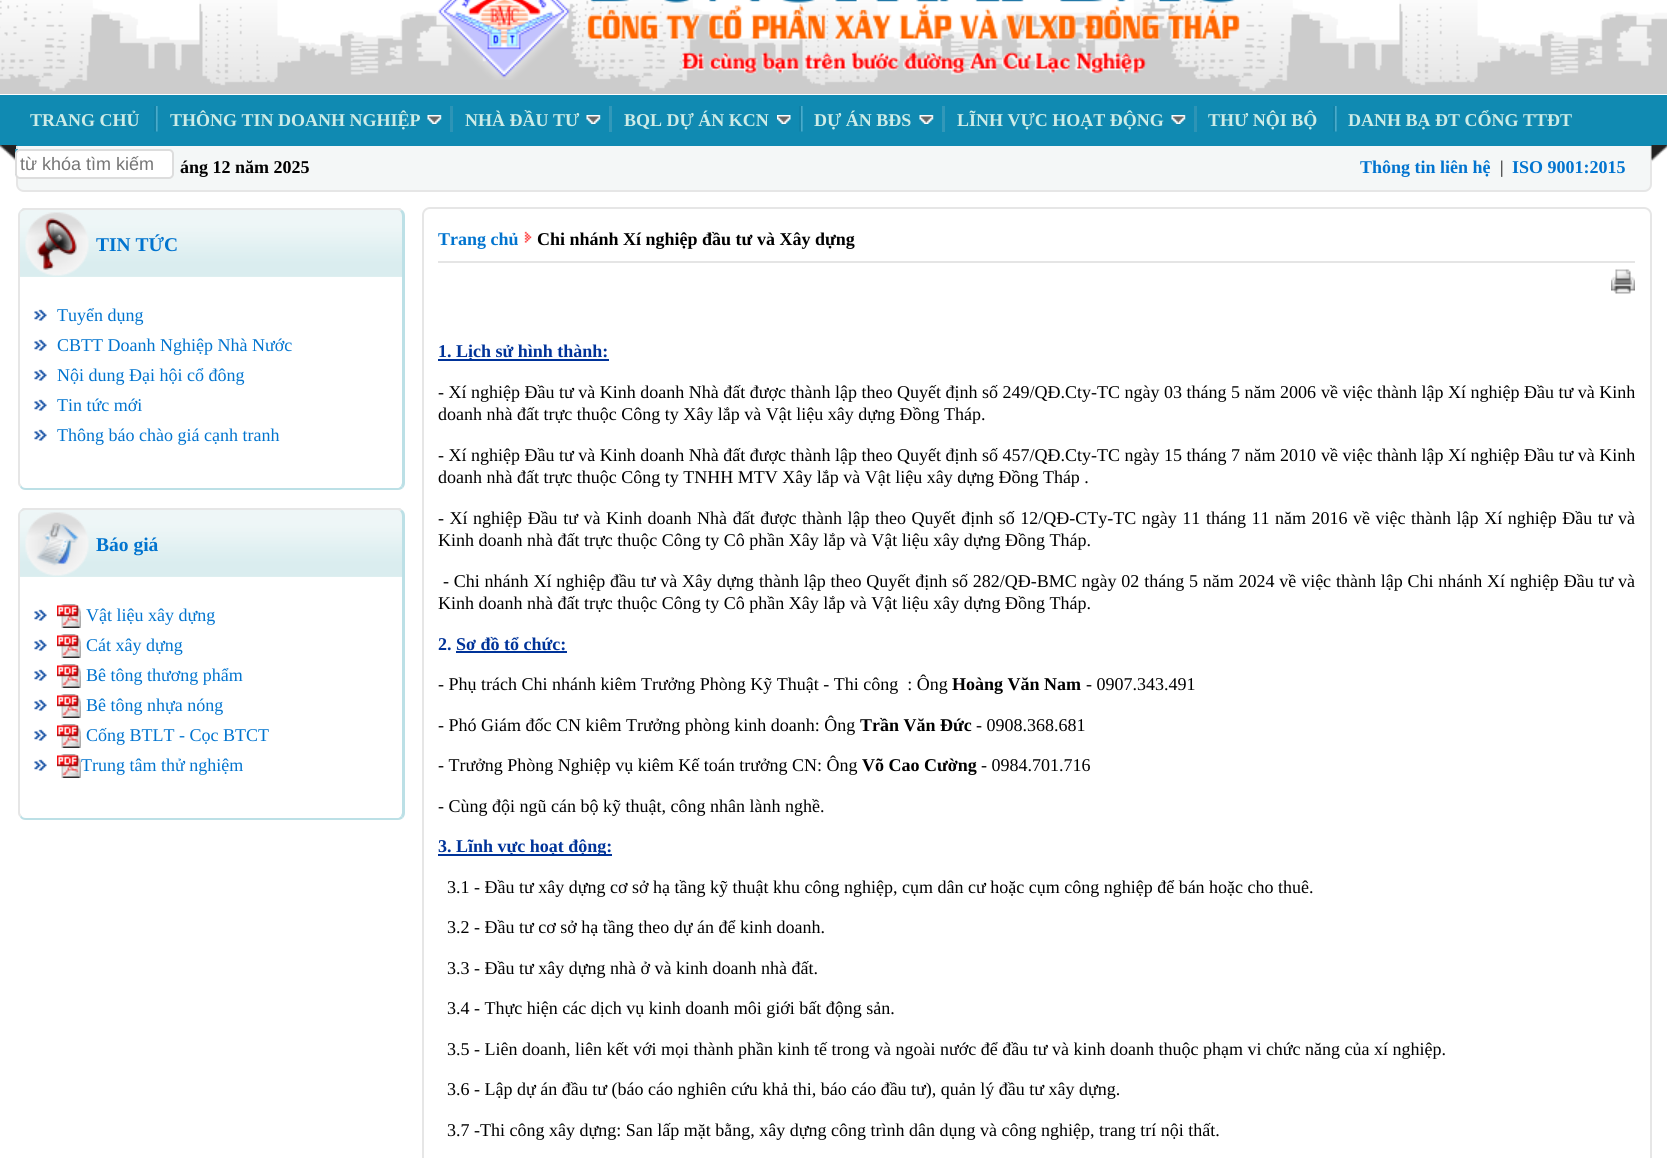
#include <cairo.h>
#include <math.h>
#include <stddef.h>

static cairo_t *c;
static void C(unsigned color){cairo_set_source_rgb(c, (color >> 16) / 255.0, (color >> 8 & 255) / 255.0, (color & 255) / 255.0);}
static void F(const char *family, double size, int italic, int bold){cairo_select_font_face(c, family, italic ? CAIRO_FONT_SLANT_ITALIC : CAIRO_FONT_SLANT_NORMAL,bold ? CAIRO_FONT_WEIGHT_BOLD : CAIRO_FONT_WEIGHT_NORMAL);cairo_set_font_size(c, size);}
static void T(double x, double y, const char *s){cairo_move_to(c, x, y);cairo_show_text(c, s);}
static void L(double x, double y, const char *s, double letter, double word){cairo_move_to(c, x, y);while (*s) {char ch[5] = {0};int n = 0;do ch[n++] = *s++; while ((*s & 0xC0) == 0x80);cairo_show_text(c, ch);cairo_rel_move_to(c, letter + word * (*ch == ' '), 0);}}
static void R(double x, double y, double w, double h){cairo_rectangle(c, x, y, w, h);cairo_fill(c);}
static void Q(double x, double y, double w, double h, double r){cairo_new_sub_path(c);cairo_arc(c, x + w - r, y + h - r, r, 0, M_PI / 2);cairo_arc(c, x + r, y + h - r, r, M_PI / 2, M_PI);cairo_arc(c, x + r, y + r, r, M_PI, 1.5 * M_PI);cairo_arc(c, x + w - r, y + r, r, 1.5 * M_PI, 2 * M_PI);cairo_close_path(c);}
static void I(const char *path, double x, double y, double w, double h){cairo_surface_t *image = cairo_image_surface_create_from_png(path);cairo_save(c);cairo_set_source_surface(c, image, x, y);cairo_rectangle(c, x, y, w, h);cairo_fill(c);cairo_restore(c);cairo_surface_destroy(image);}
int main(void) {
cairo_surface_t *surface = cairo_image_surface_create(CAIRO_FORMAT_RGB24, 1667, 1158);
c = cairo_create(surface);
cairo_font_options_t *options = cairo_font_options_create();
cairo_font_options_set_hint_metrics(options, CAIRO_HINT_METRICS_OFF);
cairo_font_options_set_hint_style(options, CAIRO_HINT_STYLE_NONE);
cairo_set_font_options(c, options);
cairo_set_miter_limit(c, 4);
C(0xffffff);
cairo_paint(c);
I("1.png",0,0,1667,94);
I("2.png",434,0,806,80);
C(0x108ab2);
R(0,95,1667,51);
F("Liberation Serif",18,0,1);
C(0xcdece7);
T(30,126,"TRANG CHỦ");
I("3.png",154,106,4,26);
I("4.png",427,115,15,9);
T(170,126,"THÔNG TIN DOANH NGHIỆP");
C(0x2d94b6);
R(450,106,3,26);
I("4.png",586,115,15,9);
C(0xcdece7);
T(465,126,"NHÀ ĐẦU TƯ");
C(0x3298b9);
R(609,106,3,26);
I("5.png",777,115,14,9);
C(0xcdece7);
T(624,126,"BQL DỰ ÁN KCN");
I("3.png",799,106,4,26);
I("6.png",919,115,15,9);
T(814,126,"DỰ ÁN BĐS");
C(0x3298b9);
R(942,106,3,26);
I("4.png",1171,115,15,9);
C(0xcdece7);
T(957,126,"LĨNH VỰC HOẠT ĐỘNG");
C(0x2d94b6);
R(1194,106,3,26);
C(0xcdece7);
T(1208,126,"THƯ NỘI BỘ");
I("3.png",1333,106,4,26);
T(1348,126,"DANH BẠ ĐT CỔNG TTĐT");
I("7.png",0,145,17,17);
C(0xf4f7f7);
cairo_new_path(c);
cairo_move_to(c,17,146);
cairo_line_to(c,1652,146);
cairo_line_to(c,1652,184);
cairo_curve_to(c,1652,188.5,1648.5,192,1644,192);
cairo_line_to(c,25,192);
cairo_curve_to(c,20.5,192,17,188.5,17,184);
cairo_close_path(c);
cairo_fill(c);
C(0xe6e6e6);
cairo_set_fill_rule(c,CAIRO_FILL_RULE_EVEN_ODD);
cairo_new_path(c);
cairo_move_to(c,16,146);
cairo_line_to(c,1652,146);
cairo_line_to(c,1652,184);
cairo_curve_to(c,1652,189,1648,192,1644,192);
cairo_line_to(c,24,192);
cairo_curve_to(c,20,192,16,189,16,184);
cairo_close_path(c);
cairo_move_to(c,18,146);
cairo_line_to(c,1650,146);
cairo_line_to(c,1650,184);
cairo_curve_to(c,1650,188,1647,190,1644,190);
cairo_line_to(c,24,190);
cairo_curve_to(c,21,190,18,188,18,184);
cairo_close_path(c);
cairo_fill(c);
C(0x3298b9);
R(15,149,3,26);
C(0xffffff);
Q(16,150,157,28,4);
cairo_fill_preserve(c);
C(0xdddddd);
cairo_stroke(c);
F("Liberation Sans",18,0,0);
C(0x757575);
T(20,170,"từ khóa tìm kiếm");
I("8.png",1651,145,16,17);
F("Liberation Serif",18,0,1);
C(0x000000);
T(180,173,"áng 12 năm 2025");
C(0x0174cf);
T(1360,173,"Thông tin liên hệ");
F("Liberation Serif",18,0,0);
C(0x000000);
T(1500,173,"|");
F("Liberation Serif",18,0,1);
C(0x0174cf);
T(1512,173,"ISO 9001:2015");
I("9.png",18,208,387,69);
C(0xe6e6e6);
cairo_set_fill_rule(c,CAIRO_FILL_RULE_WINDING);
cairo_new_path(c);
cairo_move_to(c,26,210);
cairo_curve_to(c,24,210,22,211,21,212);
cairo_line_to(c,20,211);
cairo_line_to(c,23,208);
cairo_line_to(c,400,208);
cairo_line_to(c,402,210);
cairo_line_to(c,400,211);
cairo_line_to(c,398,210);
cairo_close_path(c);
cairo_fill(c);
C(0xbce0e6);
cairo_new_path(c);
cairo_move_to(c,402,278);
cairo_line_to(c,402,216);
cairo_curve_to(c,402,214,401,212,400,211);
cairo_line_to(c,402,210);
cairo_curve_to(c,404,211,405,214,405,216);
cairo_line_to(c,405,278);
cairo_close_path(c);
cairo_fill(c);
C(0xe6e6e6);
cairo_new_path(c);
cairo_move_to(c,18,278);
cairo_line_to(c,20,278);
cairo_line_to(c,20,216);
cairo_curve_to(c,20,215,20,213,21,212);
cairo_line_to(c,20,211);
cairo_curve_to(c,19,212,18,214,18,216);
cairo_close_path(c);
cairo_fill(c);
I("10.png",25,212,64,64);
I("11.png",37,218,40,52);
F("Liberation Serif",19.5,0,1);
C(0x0174cf);
T(96,251,"TIN TỨC");
C(0xbce0e6);
cairo_new_path(c);
cairo_move_to(c,403,488);
cairo_line_to(c,401,486);
cairo_line_to(c,402,483);
cairo_line_to(c,402,278);
cairo_line_to(c,405,278);
cairo_line_to(c,405,483);
cairo_curve_to(c,405,485,404,487,403,488);
cairo_close_path(c);
cairo_fill(c);
cairo_new_path(c);
cairo_move_to(c,403,488);
cairo_curve_to(c,402,489,400,490,398,490);
cairo_line_to(c,26,490);
cairo_curve_to(c,23,490,21,489,20,487);
cairo_line_to(c,21,485);
cairo_curve_to(c,22,487,23,488,26,488);
cairo_line_to(c,398,488);
cairo_curve_to(c,399,488,400,487,401,486);
cairo_close_path(c);
cairo_fill(c);
C(0xe6e6e6);
cairo_new_path(c);
cairo_move_to(c,18,278);
cairo_line_to(c,20,278);
cairo_line_to(c,20,483);
cairo_line_to(c,21,485);
cairo_line_to(c,20,487);
cairo_curve_to(c,19,486,18,485,18,483);
cairo_close_path(c);
cairo_fill(c);
I("12.png",34,309,13,12);
F("Liberation Serif",18,0,0);
C(0x0174cf);
T(57,321,"Tuyển dụng");
I("12.png",34,339,13,12);
T(57,351,"CBTT Doanh Nghiệp Nhà Nước");
I("12.png",34,369,13,12);
T(57,381,"Nội dung Đại hội cổ đông");
I("12.png",34,399,13,12);
T(57,411,"Tin tức mới");
I("12.png",34,429,13,12);
T(57,441,"Thông báo chào giá cạnh tranh");
I("9.png",18,508,387,69);
C(0xe6e6e6);
cairo_new_path(c);
cairo_move_to(c,26,510);
cairo_curve_to(c,24,510,22,511,21,512);
cairo_line_to(c,20,511);
cairo_line_to(c,23,508);
cairo_line_to(c,400,508);
cairo_line_to(c,402,510);
cairo_line_to(c,400,511);
cairo_line_to(c,398,510);
cairo_close_path(c);
cairo_fill(c);
C(0xbce0e6);
cairo_new_path(c);
cairo_move_to(c,402,578);
cairo_line_to(c,402,516);
cairo_curve_to(c,402,514,401,512,400,511);
cairo_line_to(c,402,510);
cairo_curve_to(c,404,511,405,514,405,516);
cairo_line_to(c,405,578);
cairo_close_path(c);
cairo_fill(c);
C(0xe6e6e6);
cairo_new_path(c);
cairo_move_to(c,18,578);
cairo_line_to(c,20,578);
cairo_line_to(c,20,516);
cairo_curve_to(c,20,515,20,513,21,512);
cairo_line_to(c,20,511);
cairo_curve_to(c,19,512,18,514,18,516);
cairo_close_path(c);
cairo_fill(c);
I("10.png",25,512,64,64);
I("13.png",36,522,43,44);
F("Liberation Serif",19.5,0,1);
C(0x0174cf);
T(96,551,"Báo giá");
C(0xbce0e6);
cairo_new_path(c);
cairo_move_to(c,403,818);
cairo_line_to(c,401,816);
cairo_line_to(c,402,813);
cairo_line_to(c,402,578);
cairo_line_to(c,405,578);
cairo_line_to(c,405,813);
cairo_curve_to(c,405,815,404,817,403,818);
cairo_close_path(c);
cairo_fill(c);
cairo_new_path(c);
cairo_move_to(c,403,818);
cairo_curve_to(c,402,819,400,820,398,820);
cairo_line_to(c,26,820);
cairo_curve_to(c,23,820,21,819,20,817);
cairo_line_to(c,21,815);
cairo_curve_to(c,22,817,23,818,26,818);
cairo_line_to(c,398,818);
cairo_curve_to(c,399,818,400,817,401,816);
cairo_close_path(c);
cairo_fill(c);
C(0xe6e6e6);
cairo_new_path(c);
cairo_move_to(c,18,578);
cairo_line_to(c,20,578);
cairo_line_to(c,20,813);
cairo_line_to(c,21,815);
cairo_line_to(c,20,817);
cairo_curve_to(c,19,816,18,815,18,813);
cairo_close_path(c);
cairo_fill(c);
I("12.png",34,609,13,12);
I("14.png",57,604,24,24);
F("Liberation Serif",18,0,0);
C(0x0174cf);
T(86,621,"Vật liệu xây dựng");
I("12.png",34,639,13,12);
I("14.png",57,634,24,24);
T(86,651,"Cát xây dựng");
I("12.png",34,669,13,12);
I("14.png",57,664,24,24);
T(86,681,"Bê tông thương phẩm");
I("12.png",34,699,13,12);
I("14.png",57,694,24,24);
T(86,711,"Bê tông nhựa nóng");
I("12.png",34,729,13,12);
I("14.png",57,724,24,24);
T(86,741,"Cống BTLT - Cọc BTCT");
I("12.png",34,759,13,12);
I("14.png",57,754,24,24);
T(81,771,"Trung tâm thử nghiệm");
Q(423,208,1228,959,7);
C(0xe6e6e6);
cairo_stroke(c);
F("Liberation Serif",18,0,1);
C(0x0174cf);
T(438,245,"Trang chủ");
I("15.png",524,231,8,12);
C(0x000000);
T(537,245,"Chi nhánh Xí nghiệp đầu tư và Xây dựng");
C(0xe5e5e5);
R(438,261,1197,2);
I("16.png",1611,269,24,25);
C(0x003399);
R(438,359,171,2);
T(438,357,"1. Lịch sử hình thành:");
F("Liberation Serif",18,0,0);
C(0x000000);
T(438,398,"- Xí nghiệp Đầu tư và Kinh doanh Nhà đất được thành lập theo Quyết định số 249/QĐ.Cty-TC ngày 03 tháng 5 năm 2006");
T(1321,398,"về việc thành lập Xí nghiệp Đầu tư và Kinh");
T(438,420,"doanh nhà đất trực thuộc Công ty Xây lắp và Vật liệu xây dựng Đồng Tháp.");
T(438,461,"- Xí nghiệp Đầu tư và Kinh doanh Nhà đất được thành lập theo Quyết định số 457/QĐ.Cty-TC ngày 15 tháng 7 năm 2010");
T(1321,461,"về việc thành lập Xí nghiệp Đầu tư và Kinh");
T(438,483,"doanh nhà đất trực thuộc Công ty TNHH MTV Xây lắp và Vật liệu xây dựng Đồng Tháp .");
L(438,524,"- Xí nghiệp Đầu tư và Kinh doanh Nhà đất được thành lập theo Quyết định số 12/QĐ-CTy-TC ngày 11 tháng 11 năm 2016",0,1.05);
L(1353,524,"về việc thành lập Xí nghiệp Đầu tư và",0,1.05);
T(438,546,"Kinh doanh nhà đất trực thuộc Công ty Cô phần Xây lắp và Vật liệu xây dựng Đồng Tháp.");
L(443,587,"- Chi nhánh Xí nghiệp đầu tư và Xây dựng",0,.3);
L(759,587,"thành lập theo Quyết định số 282/QĐ-BMC ngày 02 tháng 5 năm 2024 về việc thành lập Chi nhánh Xí nghiệp Đầu tư và",0,.3);
T(438,609,"Kinh doanh nhà đất trực thuộc Công ty Cô phần Xây lắp và Vật liệu xây dựng Đồng Tháp.");
F("Liberation Serif",18,0,1);
C(0x003399);
T(438,650,"2. Sơ đồ tổ chức:");
R(456,651,111,2);
F("Liberation Serif",18,0,0);
C(0x000000);
T(438,690,"- Phụ trách Chi nhánh kiêm Trưởng Phòng Kỹ Thuật - Thi công  : Ông");
F("Liberation Serif",18,0,1);
T(952,690,"Hoàng Văn Nam");
F("Liberation Serif",18,0,0);
T(1086,690,"- 0907.343.491");
T(438,731,"- Phó Giám đốc CN kiêm Trưởng phòng kinh doanh: Ông");
F("Liberation Serif",18,0,1);
T(860,731,"Trần Văn Đức");
F("Liberation Serif",18,0,0);
T(976,731,"- 0908.368.681");
T(438,771,"- Trưởng Phòng Nghiệp vụ kiêm Kế toán trưởng CN: Ông");
F("Liberation Serif",18,0,1);
T(862,771,"Võ Cao Cường");
F("Liberation Serif",18,0,0);
T(981,771,"- 0984.701.716");
T(438,812,"- Cùng đội ngũ cán bộ kỹ thuật, công nhân lành nghề.");
C(0x003399);
R(438,854,174,2);
F("Liberation Serif",18,0,1);
T(438,852,"3. Lĩnh vực hoạt động:");
F("Liberation Serif",18,0,0);
C(0x000000);
T(447,893,"3.1 - Đầu tư xây dựng cơ sở hạ tầng kỹ thuật khu công nghiệp, cụm dân cư hoặc cụm công nghiệp để bán hoặc cho thuê.");
T(447,933,"3.2 - Đầu tư cơ sở hạ tầng theo dự án để kinh doanh.");
T(447,974,"3.3 - Đầu tư xây dựng nhà ở và kinh doanh nhà đất.");
T(447,1014,"3.4 - Thực hiện các dịch vụ kinh doanh môi giới bất động sản.");
T(447,1055,"3.5 - Liên doanh, liên kết với mọi thành phần kinh tế trong và ngoài nước để đầu tư và kinh doanh thuộc phạm vi chức năng của xí nghiệp.");
T(447,1095,"3.6 - Lập dự án đầu tư (báo cáo nghiên cứu khả thi, báo cáo đầu tư), quản lý đầu tư xây dựng.");
T(447,1136,"3.7 -Thi công xây dựng: San lấp mặt bằng, xây dựng công trình dân dụng và công nghiệp, trang trí nội thất.");
cairo_surface_write_to_png(surface, "o.png");
cairo_font_options_destroy(options);
cairo_destroy(c);
cairo_surface_destroy(surface);
return 0;
}
